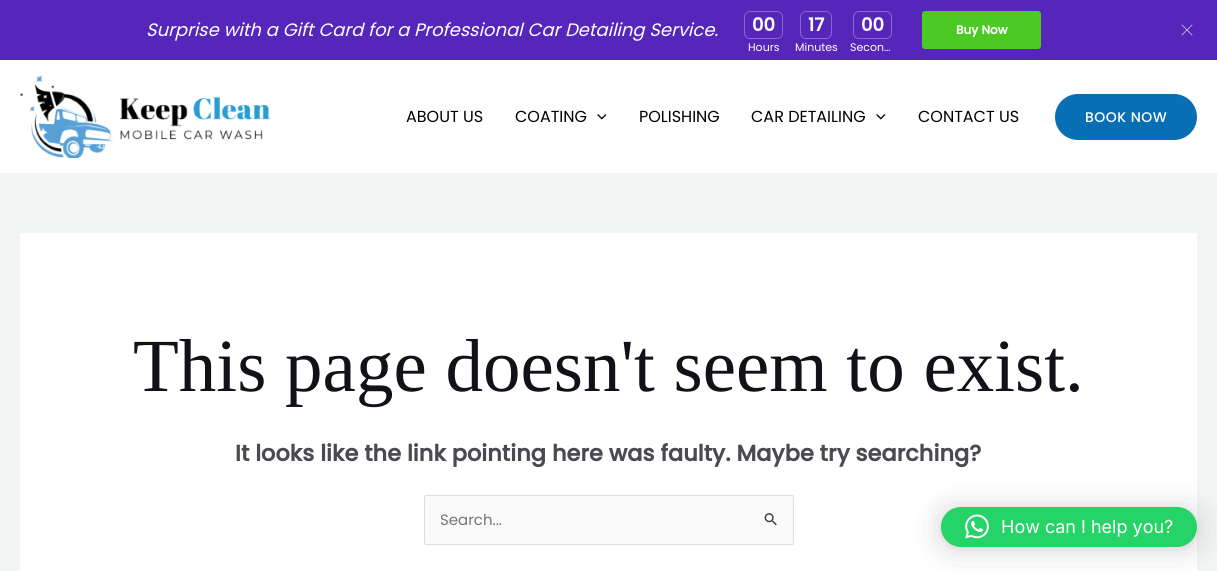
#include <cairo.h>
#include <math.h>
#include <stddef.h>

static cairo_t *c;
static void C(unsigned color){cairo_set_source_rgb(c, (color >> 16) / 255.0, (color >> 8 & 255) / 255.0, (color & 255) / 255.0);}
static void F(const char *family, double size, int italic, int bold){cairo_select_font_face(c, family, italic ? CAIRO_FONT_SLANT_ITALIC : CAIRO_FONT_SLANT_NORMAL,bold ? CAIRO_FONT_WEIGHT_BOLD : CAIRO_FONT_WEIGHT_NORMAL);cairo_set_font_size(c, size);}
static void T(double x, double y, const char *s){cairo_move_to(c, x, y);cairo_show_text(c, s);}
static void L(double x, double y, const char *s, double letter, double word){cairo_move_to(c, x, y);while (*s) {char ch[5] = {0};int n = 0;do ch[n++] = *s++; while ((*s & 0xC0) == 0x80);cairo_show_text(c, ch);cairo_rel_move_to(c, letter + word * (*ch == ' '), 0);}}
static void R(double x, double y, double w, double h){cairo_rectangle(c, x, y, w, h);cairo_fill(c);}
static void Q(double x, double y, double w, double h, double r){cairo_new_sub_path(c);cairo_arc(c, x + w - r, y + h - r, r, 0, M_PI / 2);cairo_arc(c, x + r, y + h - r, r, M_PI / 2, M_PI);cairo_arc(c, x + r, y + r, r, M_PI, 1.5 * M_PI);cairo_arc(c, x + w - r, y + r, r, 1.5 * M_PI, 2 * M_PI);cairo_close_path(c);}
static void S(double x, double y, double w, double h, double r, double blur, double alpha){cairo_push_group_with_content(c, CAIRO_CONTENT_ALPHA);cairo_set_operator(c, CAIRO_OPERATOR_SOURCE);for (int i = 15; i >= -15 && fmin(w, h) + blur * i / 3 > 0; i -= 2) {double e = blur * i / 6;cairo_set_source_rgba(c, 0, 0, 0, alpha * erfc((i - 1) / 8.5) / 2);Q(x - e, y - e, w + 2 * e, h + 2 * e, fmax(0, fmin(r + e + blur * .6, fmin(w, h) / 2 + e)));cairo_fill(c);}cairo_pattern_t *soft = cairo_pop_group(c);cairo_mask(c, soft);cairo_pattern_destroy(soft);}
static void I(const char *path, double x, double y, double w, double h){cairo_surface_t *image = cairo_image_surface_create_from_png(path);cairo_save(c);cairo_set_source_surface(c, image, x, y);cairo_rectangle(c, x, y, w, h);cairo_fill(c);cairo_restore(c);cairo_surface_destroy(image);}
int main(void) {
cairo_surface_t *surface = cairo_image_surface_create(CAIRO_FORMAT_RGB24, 1217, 571);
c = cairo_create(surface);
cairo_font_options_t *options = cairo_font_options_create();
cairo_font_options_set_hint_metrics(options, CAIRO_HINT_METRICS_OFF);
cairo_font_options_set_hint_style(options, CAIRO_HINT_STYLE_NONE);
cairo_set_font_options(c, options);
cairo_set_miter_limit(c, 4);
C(0xf3f5f5);
cairo_paint(c);
C(0x5526b9);
R(0,0,1217,60);
F("Poppins",18,1,0);
C(0xffffff);
T(146,36,"Surprise with a Gift Card for a Professional Car Detailing Service.");
Q(744.5,11.5,38,27,5.5);
C(0x8867ce);
cairo_set_line_width(c,1);
cairo_stroke(c);
F("Poppins",18,0,1);
C(0xffffff);
T(752,31,"00");
F("Poppins",11,0,0);
T(748,51,"Hours");
Q(800.5,11.5,31,27,5.5);
C(0x8867ce);
cairo_stroke(c);
F("Poppins",18,0,1);
C(0xffffff);
T(808,31,"17");
F("Poppins",11,0,0);
T(795,51,"Minutes");
Q(853.5,11.5,38,27,5.5);
C(0x8867ce);
cairo_stroke(c);
F("Poppins",18,0,1);
C(0xffffff);
T(861,31,"00");
F("Poppins",11,0,0);
T(850,51,"Secon…");
C(0x4cca23);
Q(922,11,119,38,3);
cairo_fill(c);
F("Poppins",12,0,1);
C(0xffffff);
T(956,34,"Buy Now");
C(0xddd4f1);
cairo_new_path(c);
cairo_move_to(c,1182,24.5);
cairo_line_to(c,1192.5,35);
cairo_line_to(c,1192,35.5);
cairo_line_to(c,1181.5,25);
cairo_close_path(c);
cairo_fill(c);
cairo_new_path(c);
cairo_move_to(c,1181.5,35);
cairo_line_to(c,1192,24.5);
cairo_line_to(c,1192.5,25);
cairo_line_to(c,1182,35.5);
cairo_close_path(c);
cairo_fill(c);
C(0xffffff);
R(0,60,1217,113);
I("1.png",20,75,250,83);
F("Poppins",16,0,0);
C(0x000000);
T(406,122,"ABOUT US");
T(515,122,"COATING");
I("2.png",597,114,10,6);
T(639,122,"POLISHING");
T(751,122,"CAR DETAILING");
I("2.png",876,114,10,6);
T(918,122,"CONTACT US");
C(0x096fb4);
Q(1055,94,142,46,23);
cairo_fill(c);
F("Poppins Medium",14,0,0);
C(0xffffff);
L(1085,122,"BOOK NOW",.5,0);
R(20,233,1177,338);
F("Liberation Serif",75,0,0);
C(0x101218);
T(133,391,"This page doesn't seem to exist.");
F("Poppins",22.5,0,1);
C(0x494b51);
T(235,461,"It looks like the link pointing here was faulty. Maybe try searching?");
C(0xfafafa);
Q(424.5,495.5,369,49,1.5);
cairo_fill_preserve(c);
C(0xdddddd);
cairo_stroke(c);
F("Poppins",15,0,0);
C(0x757575);
T(440,525,"Search...");
I("3.png",764,513,13,13);
C(0x000000);
S(941,509,256,40,20,16,.16);
S(941,508,256,40,20,3,.06);
C(0x25d366);
Q(941,507,256,40,20);
cairo_fill(c);
I("4.png",965,514,24,25);
F("Inter",18,0,0);
C(0xffffff);
T(1001,533,"How can I help you?");
cairo_surface_write_to_png(surface, "o.png");
cairo_font_options_destroy(options);
cairo_destroy(c);
cairo_surface_destroy(surface);
return 0;
}
